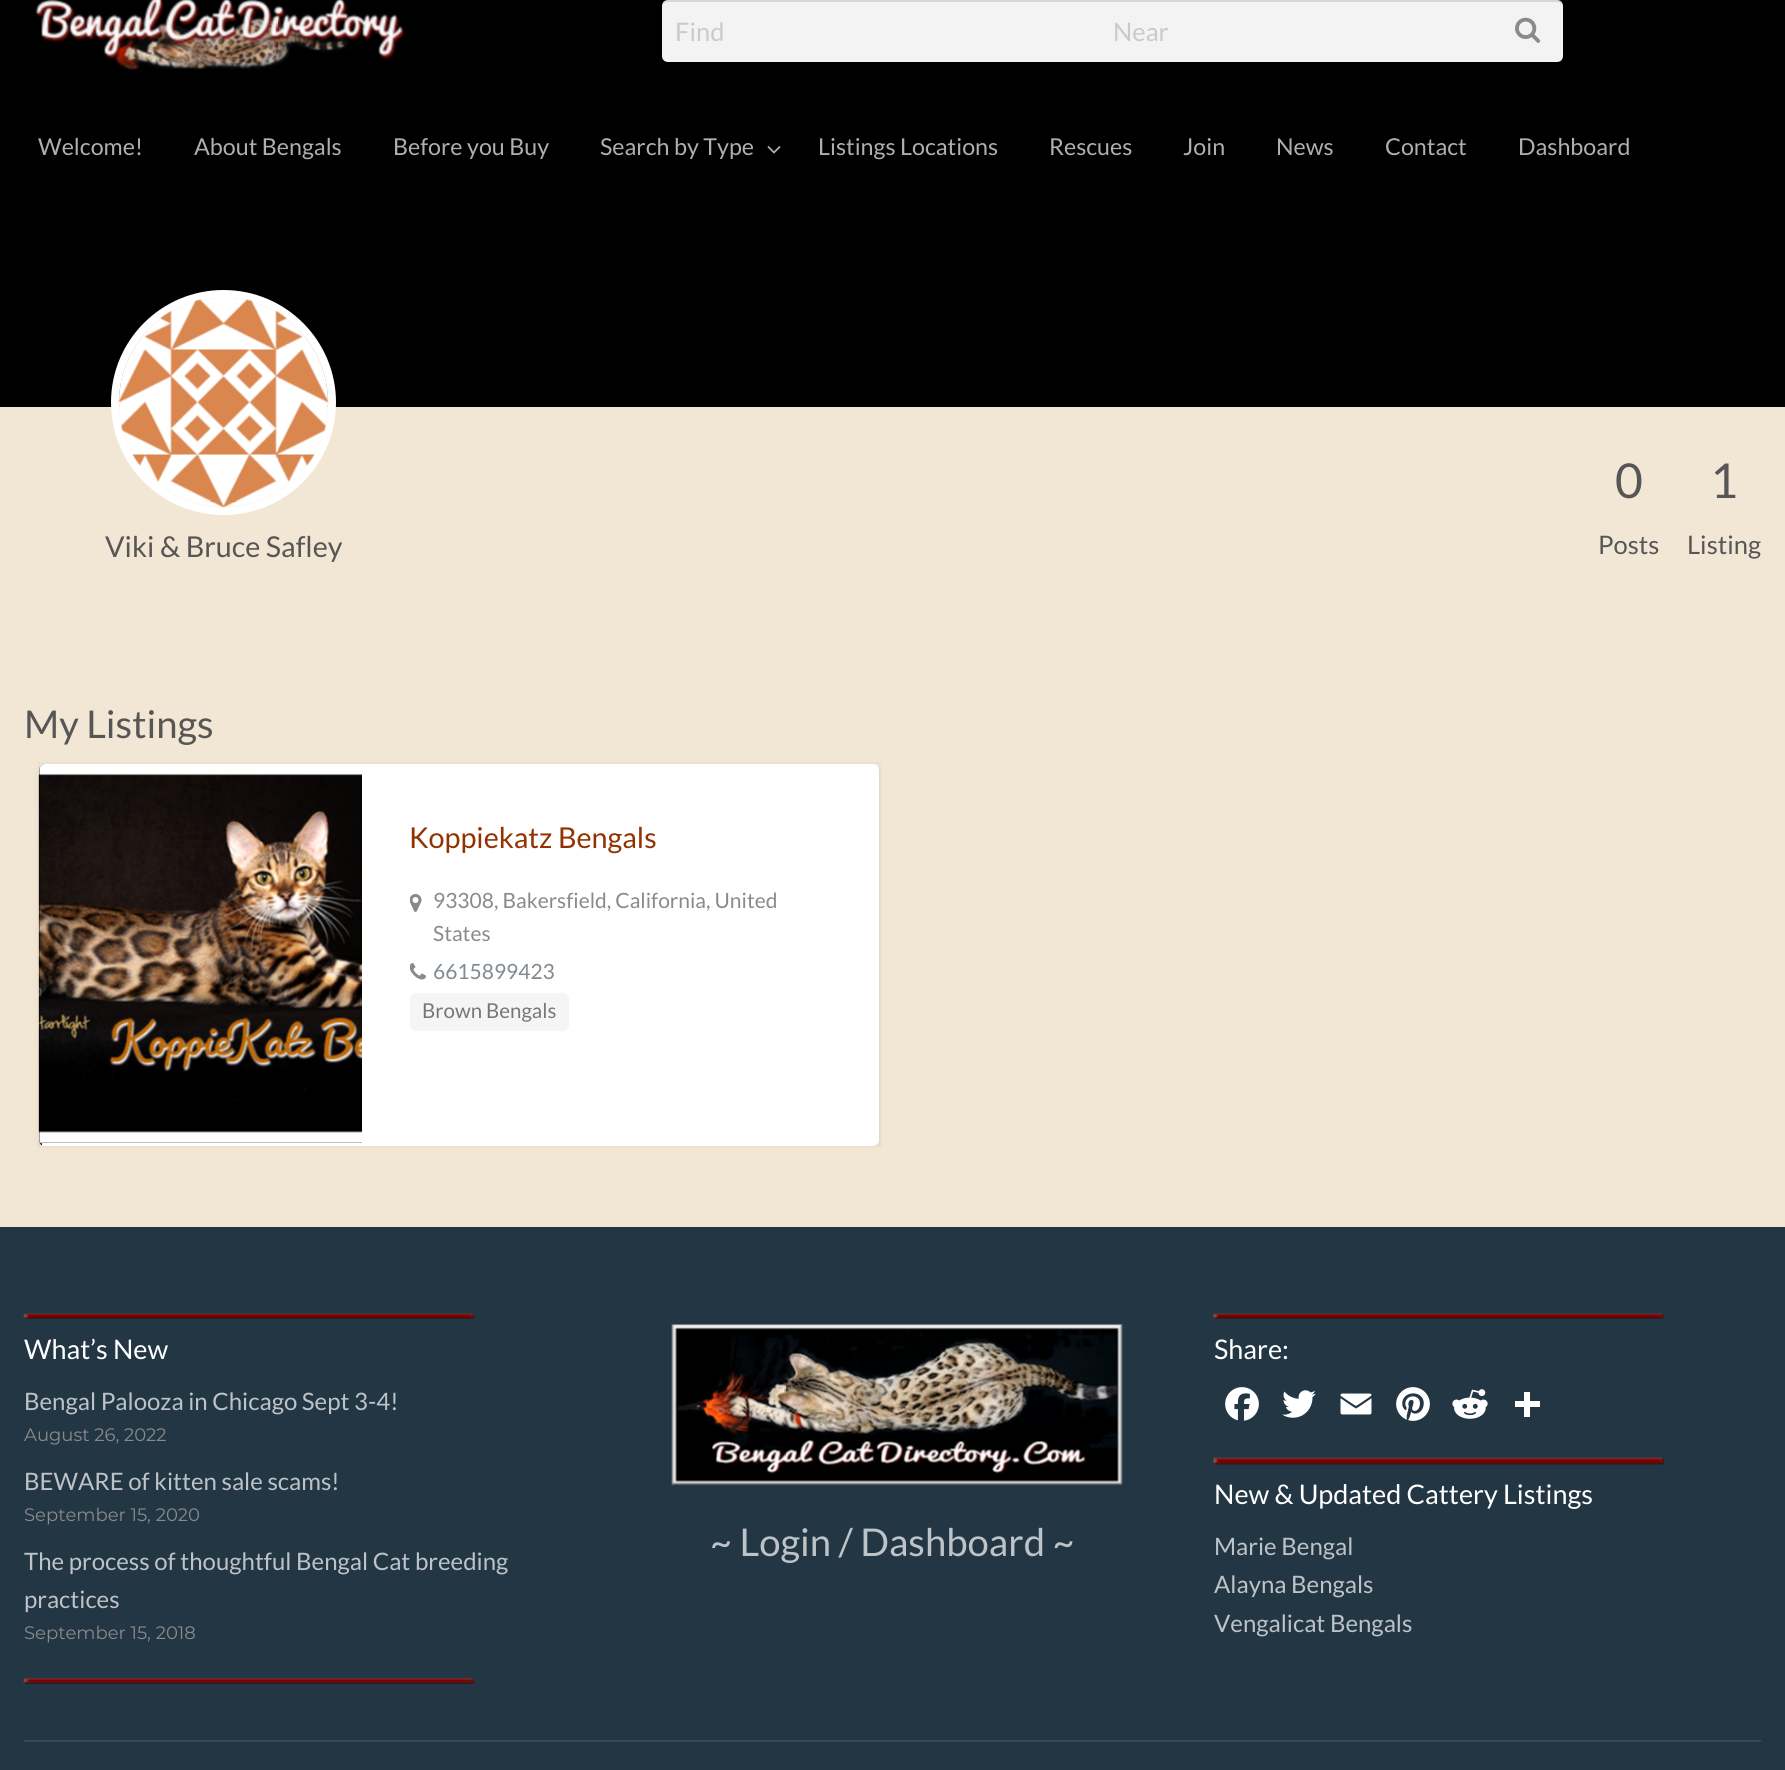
#include <cairo.h>
#include <math.h>
#include <stddef.h>

static cairo_t *c;
static void C(unsigned color){cairo_set_source_rgb(c, (color >> 16) / 255.0, (color >> 8 & 255) / 255.0, (color & 255) / 255.0);}
static void F(const char *family, double size, int italic, int bold){cairo_select_font_face(c, family, italic ? CAIRO_FONT_SLANT_ITALIC : CAIRO_FONT_SLANT_NORMAL,bold ? CAIRO_FONT_WEIGHT_BOLD : CAIRO_FONT_WEIGHT_NORMAL);cairo_set_font_size(c, size);}
static void T(double x, double y, const char *s){cairo_move_to(c, x, y);cairo_show_text(c, s);}
static void R(double x, double y, double w, double h){cairo_rectangle(c, x, y, w, h);cairo_fill(c);}
static void Q(double x, double y, double w, double h, double r){cairo_new_sub_path(c);cairo_arc(c, x + w - r, y + h - r, r, 0, M_PI / 2);cairo_arc(c, x + r, y + h - r, r, M_PI / 2, M_PI);cairo_arc(c, x + r, y + r, r, M_PI, 1.5 * M_PI);cairo_arc(c, x + w - r, y + r, r, 1.5 * M_PI, 2 * M_PI);cairo_close_path(c);}
static void S(double x, double y, double w, double h, double r, double blur, double alpha){cairo_push_group_with_content(c, CAIRO_CONTENT_ALPHA);cairo_set_operator(c, CAIRO_OPERATOR_SOURCE);for (int i = 15; i >= -15 && fmin(w, h) + blur * i / 3 > 0; i -= 2) {double e = blur * i / 6;cairo_set_source_rgba(c, 0, 0, 0, alpha * erfc((i - 1) / 8.5) / 2);Q(x - e, y - e, w + 2 * e, h + 2 * e, fmax(0, fmin(r + e + blur * .6, fmin(w, h) / 2 + e)));cairo_fill(c);}cairo_pattern_t *soft = cairo_pop_group(c);cairo_mask(c, soft);cairo_pattern_destroy(soft);}
static void I(const char *path, double x, double y, double w, double h){cairo_surface_t *image = cairo_image_surface_create_from_png(path);cairo_save(c);cairo_set_source_surface(c, image, x, y);cairo_rectangle(c, x, y, w, h);cairo_fill(c);cairo_restore(c);cairo_surface_destroy(image);}
int main(void) {
cairo_surface_t *surface = cairo_image_surface_create(CAIRO_FORMAT_RGB24, 1785, 1770);
c = cairo_create(surface);
cairo_font_options_t *options = cairo_font_options_create();
cairo_font_options_set_hint_metrics(options, CAIRO_HINT_METRICS_OFF);
cairo_font_options_set_hint_style(options, CAIRO_HINT_STYLE_NONE);
cairo_set_font_options(c, options);
cairo_set_miter_limit(c, 4);
C(0xf2e7d5);
cairo_paint(c);
C(0x000000);
R(0,0,1785,407);
I("1.png",35,0,369,70);
C(0xf3f3f4);
cairo_new_path(c);
cairo_move_to(c,668,0);
cairo_line_to(c,1101,0);
cairo_line_to(c,1101,62);
cairo_line_to(c,668,62);
cairo_curve_to(c,664.5,62,662,59.5,662,56);
cairo_line_to(c,662,6);
cairo_curve_to(c,662,2.5,664.5,0,668,0);
cairo_close_path(c);
cairo_fill(c);
cairo_set_source_rgba(c,0,0,0,0.12);
cairo_new_path(c);
cairo_move_to(c,668,2);
cairo_line_to(c,1101,2);
cairo_line_to(c,1101,0);
cairo_line_to(c,668,0);
cairo_curve_to(c,665,0,662,3,662,6);
cairo_line_to(c,662,8);
cairo_curve_to(c,662,4,664,2,668,2);
cairo_close_path(c);
cairo_fill(c);
F("Lato",25.5,0,0);
C(0xcacaca);
T(675,41,"Find");
C(0xf3f3f4);
cairo_new_path(c);
cairo_move_to(c,1101,0);
cairo_line_to(c,1557,0);
cairo_curve_to(c,1560.5,0,1563,2.5,1563,6);
cairo_line_to(c,1563,56);
cairo_curve_to(c,1563,59.5,1560.5,62,1557,62);
cairo_line_to(c,1101,62);
cairo_close_path(c);
cairo_fill(c);
cairo_set_source_rgba(c,0,0,0,0.12);
cairo_new_path(c);
cairo_move_to(c,1101,2);
cairo_line_to(c,1557,2);
cairo_curve_to(c,1560,2,1563,4,1563,8);
cairo_curve_to(c,1563,4,1562,0,1557,0);
cairo_line_to(c,1101,0);
cairo_close_path(c);
cairo_fill(c);
C(0xcacaca);
T(1113,41,"Near");
I("2.png",1515,17,26,26);
F("Lato",23.25,0,0);
C(0xafafaf);
T(38,155,"Welcome!");
T(194,155,"About Bengals");
T(393,155,"Before you Buy");
T(600,155,"Search by Type");
I("3.png",767,146,14,8);
T(818,155,"Listings Locations");
T(1049,155,"Rescues");
T(1183,155,"Join");
T(1276,155,"News");
T(1385,155,"Contact");
T(1518,155,"Dashboard");
cairo_new_path(c);
cairo_arc(c,223.5,402.5,108.5,0,2 * M_PI);
C(0xffffff);
cairo_set_line_width(c,8);
cairo_stroke(c);
I("4.png",118,298,211,210);
F("Lato",28.75,0,0);
C(0x565656);
T(105,557,"Viki & Bruce Safley");
F("Lato",48,0,0);
T(1615,498,"0");
F("Lato",25.5,0,0);
T(1598,554,"Posts");
F("Lato",48,0,0);
T(1710,498,"1");
F("Lato",25.5,0,0);
T(1687,554,"Listing");
F("Lato",38.25,0,0);
T(24,738,"My Listings");
cairo_save(c);
cairo_rectangle(c,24,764,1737,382);
cairo_clip(c);
C(0x000000);
S(39,767,840,382,6,4,.05);
S(39,765,840,383,6,1,.05);
cairo_restore(c);
cairo_rectangle(c,39,763,841,384);
cairo_set_source_rgba(c,0,0,0,0.03);
cairo_set_line_width(c,2);
cairo_stroke(c);
C(0xffffff);
Q(39,764,840,382,6);
cairo_fill(c);
C(0x000000);
cairo_new_path(c);
cairo_move_to(c,45,764);
cairo_line_to(c,362,764);
cairo_line_to(c,362,1146);
cairo_line_to(c,45,1146);
cairo_curve_to(c,41.5,1146,39,1143.5,39,1140);
cairo_line_to(c,39,770);
cairo_curve_to(c,39,766.5,41.5,764,45,764);
cairo_close_path(c);
cairo_fill(c);
I("5.png",38,764,324,380);
C(0xffffff);
R(42,1143,320,3);
F("Lato",28.75,0,0);
C(0x933201);
T(409,848,"Koppiekatz Bengals");
I("6.png",410,894,12,18);
F("Lato",21,0,0);
C(0x8a8a8a);
T(433,908,"93308, Bakersfield, California, United");
T(433,941,"States");
I("7.png",410,963,16,17);
C(0x818a91);
T(433,979,"6615899423");
C(0xf5f5f5);
Q(410,993,159,38,6);
cairo_fill(c);
F("Lato",20.5,0,0);
C(0x777777);
T(422,1018,"Brown Bengals");
C(0x233644);
R(0,1227,1785,543);
I("8.png",23,1313,452,6);
F("Lato",27,0,0);
C(0xffffff);
T(24,1359,"What’s New");
F("Lato",24,0,0);
C(0xbdc3c7);
T(24,1410,"Bengal Palooza in Chicago Sept 3-4!");
F("Montserrat",18,0,0);
C(0x8a8a8a);
T(24,1441,"August 26, 2022");
F("Lato",24,0,0);
C(0xbdc3c7);
T(24,1490,"BEWARE of kitten sale scams!");
F("Montserrat",18,0,0);
C(0x8a8a8a);
T(24,1521,"September 15, 2020");
F("Lato",24,0,0);
C(0xbdc3c7);
T(24,1570,"The process of thoughtful Bengal Cat breeding");
T(24,1608,"practices");
F("Montserrat",18,0,0);
C(0x8a8a8a);
T(24,1639,"September 15, 2018");
I("9.png",23,1678,452,6);
I("10.png",671,1324,452,162);
F("Lato",38.25,0,0);
C(0xbdc3c7);
T(710,1556,"~ Login / Dashboard ~");
I("11.png",1213,1313,451,6);
F("Lato",27,0,0);
C(0xffffff);
T(1214,1359,"Share:");
I("12.png",1225,1387,34,34);
I("13.png",1282,1390,34,28);
I("14.png",1340,1393,32,22);
I("15.png",1396,1387,34,34);
I("16.png",1452,1389,36,30);
R(1524,1392,6,25);
R(1515,1401,25,6);
I("17.png",1213,1457,451,8);
T(1214,1504,"New & Updated Cattery Listings");
F("Lato",24,0,0);
C(0xbdc3c7);
T(1214,1555,"Marie Bengal");
T(1214,1593,"Alayna Bengals");
T(1214,1632,"Vengalicat Bengals");
C(0x394a57);
R(24,1740,1737,2);
cairo_surface_write_to_png(surface, "o.png");
cairo_font_options_destroy(options);
cairo_destroy(c);
cairo_surface_destroy(surface);
return 0;
}
